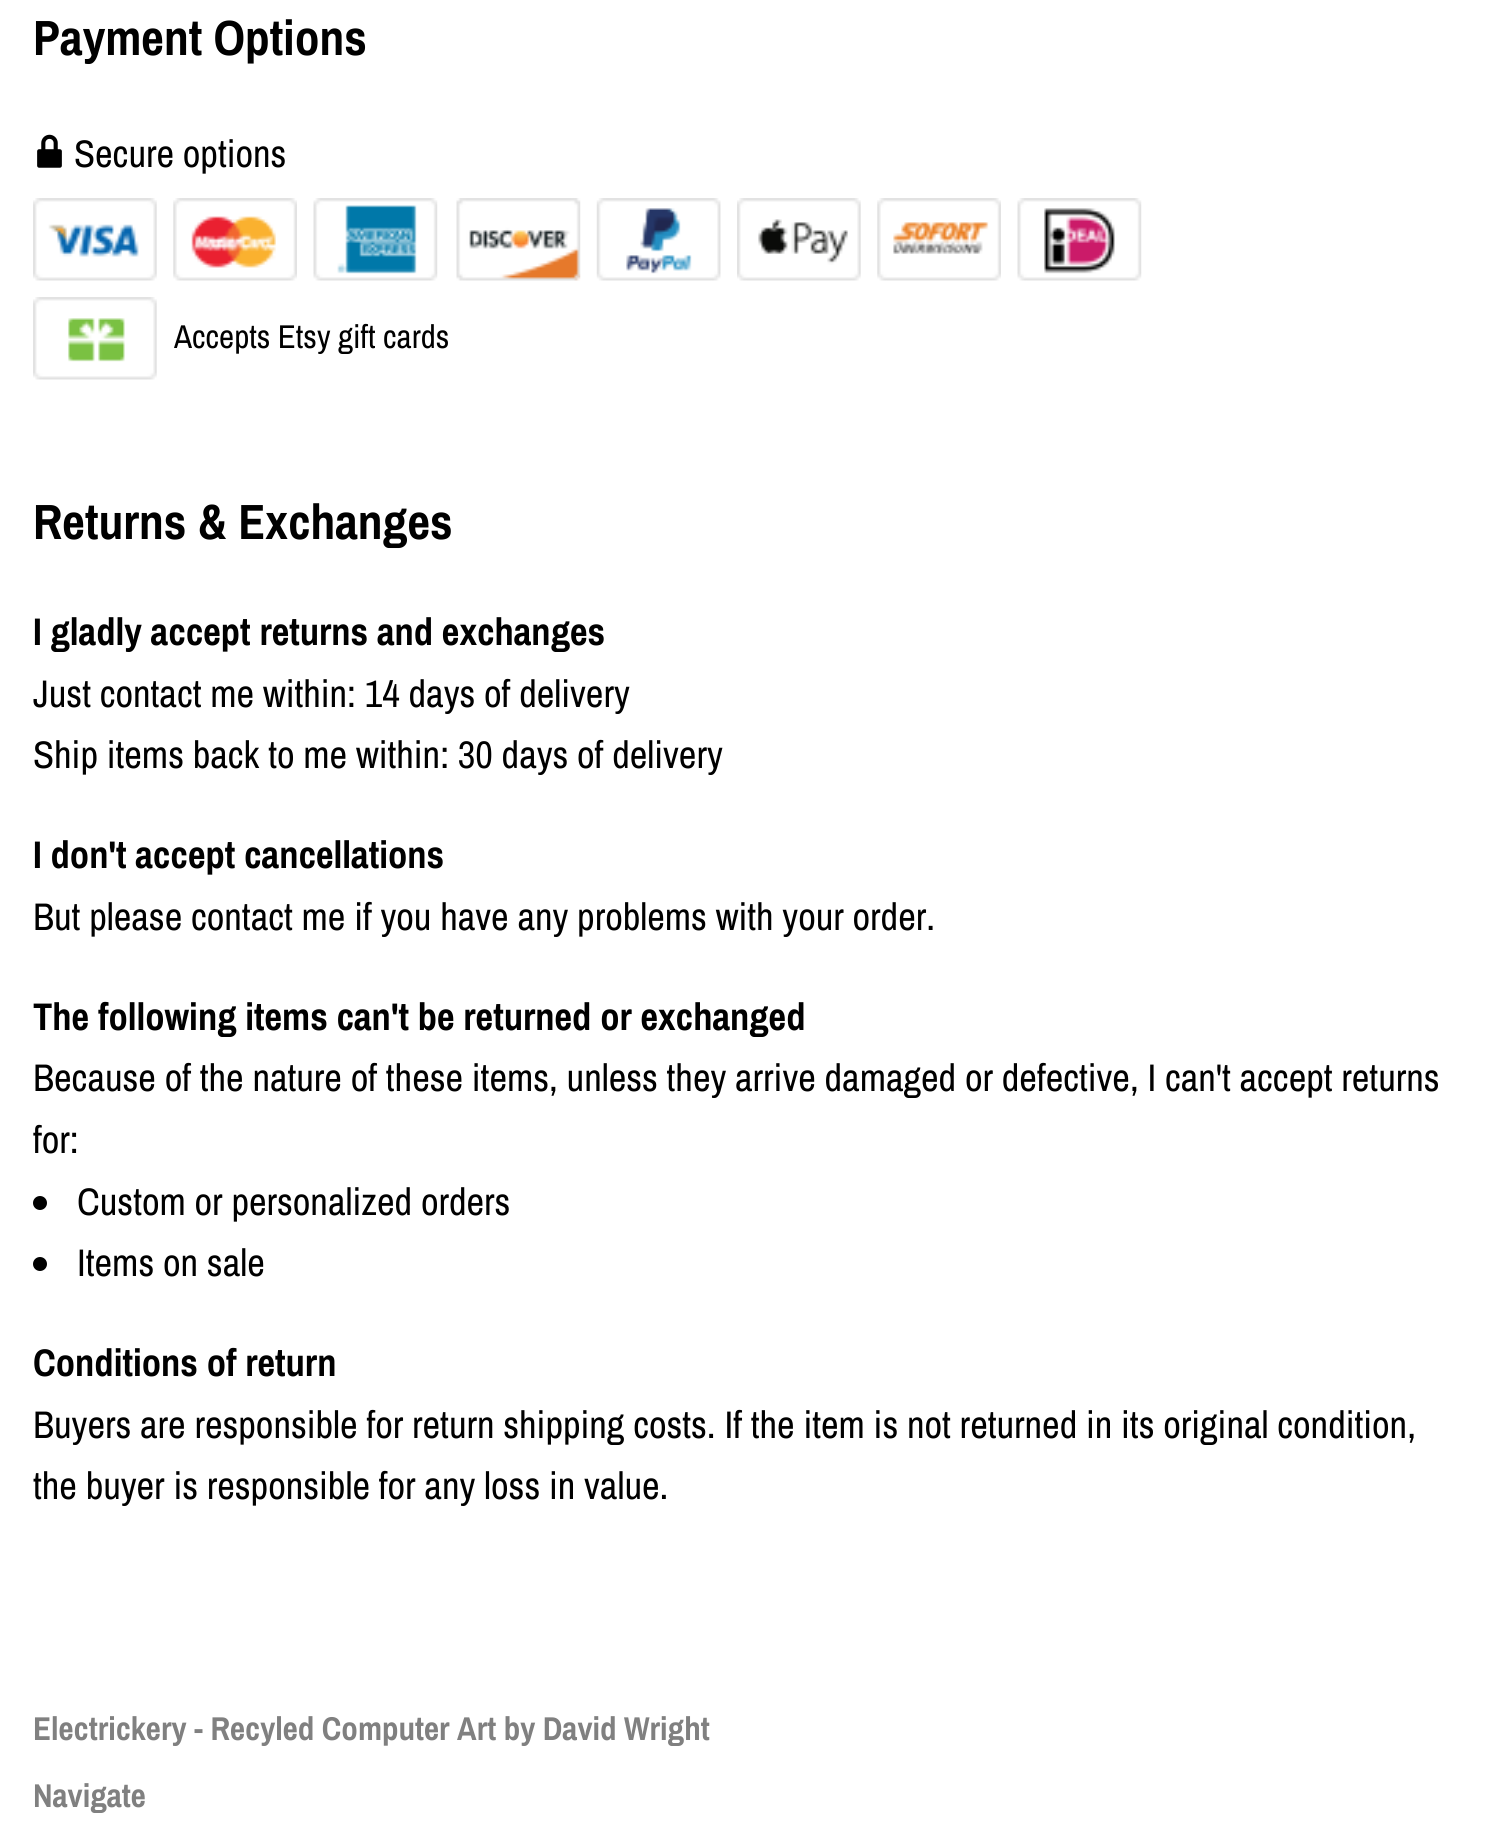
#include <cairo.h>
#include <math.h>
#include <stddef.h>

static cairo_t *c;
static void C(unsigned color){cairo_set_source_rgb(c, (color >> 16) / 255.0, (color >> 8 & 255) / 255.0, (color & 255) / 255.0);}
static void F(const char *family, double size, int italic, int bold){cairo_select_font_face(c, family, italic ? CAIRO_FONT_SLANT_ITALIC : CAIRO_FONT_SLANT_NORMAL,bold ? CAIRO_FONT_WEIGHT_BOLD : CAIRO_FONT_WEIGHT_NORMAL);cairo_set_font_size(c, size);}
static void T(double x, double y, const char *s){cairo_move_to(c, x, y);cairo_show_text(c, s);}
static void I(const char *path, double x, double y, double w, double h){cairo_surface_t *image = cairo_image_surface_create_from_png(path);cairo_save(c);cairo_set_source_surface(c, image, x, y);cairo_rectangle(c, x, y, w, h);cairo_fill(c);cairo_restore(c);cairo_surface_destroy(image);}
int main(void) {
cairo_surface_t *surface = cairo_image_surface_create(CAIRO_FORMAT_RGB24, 1500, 1828);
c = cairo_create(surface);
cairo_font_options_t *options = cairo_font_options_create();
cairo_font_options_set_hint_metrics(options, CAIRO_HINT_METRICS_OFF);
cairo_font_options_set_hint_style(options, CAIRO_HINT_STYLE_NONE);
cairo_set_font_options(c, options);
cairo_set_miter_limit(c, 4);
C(0xffffff);
cairo_paint(c);
F("Archivo Narrow",49.5,0,1);
C(0x000000);
T(33,55,"Payment Options");
I("1.png",37,134,25,34);
F("Archivo Narrow",38.5,0,0);
T(74,167,"Secure options");
I("2.png",33,198,124,83);
I("3.png",173,198,124,83);
I("4.png",313,198,125,83);
I("5.png",456,198,125,83);
I("6.png",596,198,125,83);
I("7.png",737,198,124,83);
I("8.png",877,198,124,83);
I("9.png",1017,198,125,83);
I("10.png",33,297,124,83);
F("Archivo Narrow",33,0,0);
T(174,348,"Accepts Etsy gift cards");
F("Archivo Narrow",49.5,0,1);
T(33,539,"Returns & Exchanges");
F("Archivo Narrow",38.5,0,1);
T(33,645,"I gladly accept returns and exchanges");
F("Archivo Narrow",38.5,0,0);
T(33,707,"Just contact me within: 14 days of delivery");
T(33,768,"Ship items back to me within: 30 days of delivery");
F("Archivo Narrow",38.5,0,1);
T(33,868,"I don't accept cancellations");
F("Archivo Narrow",38.5,0,0);
T(33,930,"But please contact me if you have any problems with your order.");
F("Archivo Narrow",38.5,0,1);
T(33,1030,"The following items can't be returned or exchanged");
F("Archivo Narrow",38.5,0,0);
T(33,1091,"Because of the nature of these items, unless they arrive damaged or defective, I can't accept returns");
T(33,1153,"for:");
cairo_new_path(c);
cairo_arc(c,40,1203,7,0,2 * M_PI);
cairo_fill(c);
T(77,1215,"Custom or personalized orders");
cairo_new_path(c);
cairo_arc(c,40,1264,7,0,2 * M_PI);
cairo_fill(c);
T(77,1276,"Items on sale");
F("Archivo Narrow",38.5,0,1);
T(33,1376,"Conditions of return");
F("Archivo Narrow",38.5,0,0);
T(33,1438,"Buyers are responsible for return shipping costs. If the item is not returned in its original condition,");
T(33,1499,"the buyer is responsible for any loss in value.");
F("Archivo Narrow",33,0,1);
C(0x808080);
T(33,1740,"Electrickery - Recyled Computer Art by David Wright");
T(33,1807,"Navigate");
cairo_surface_write_to_png(surface, "o.png");
cairo_font_options_destroy(options);
cairo_destroy(c);
cairo_surface_destroy(surface);
return 0;
}
